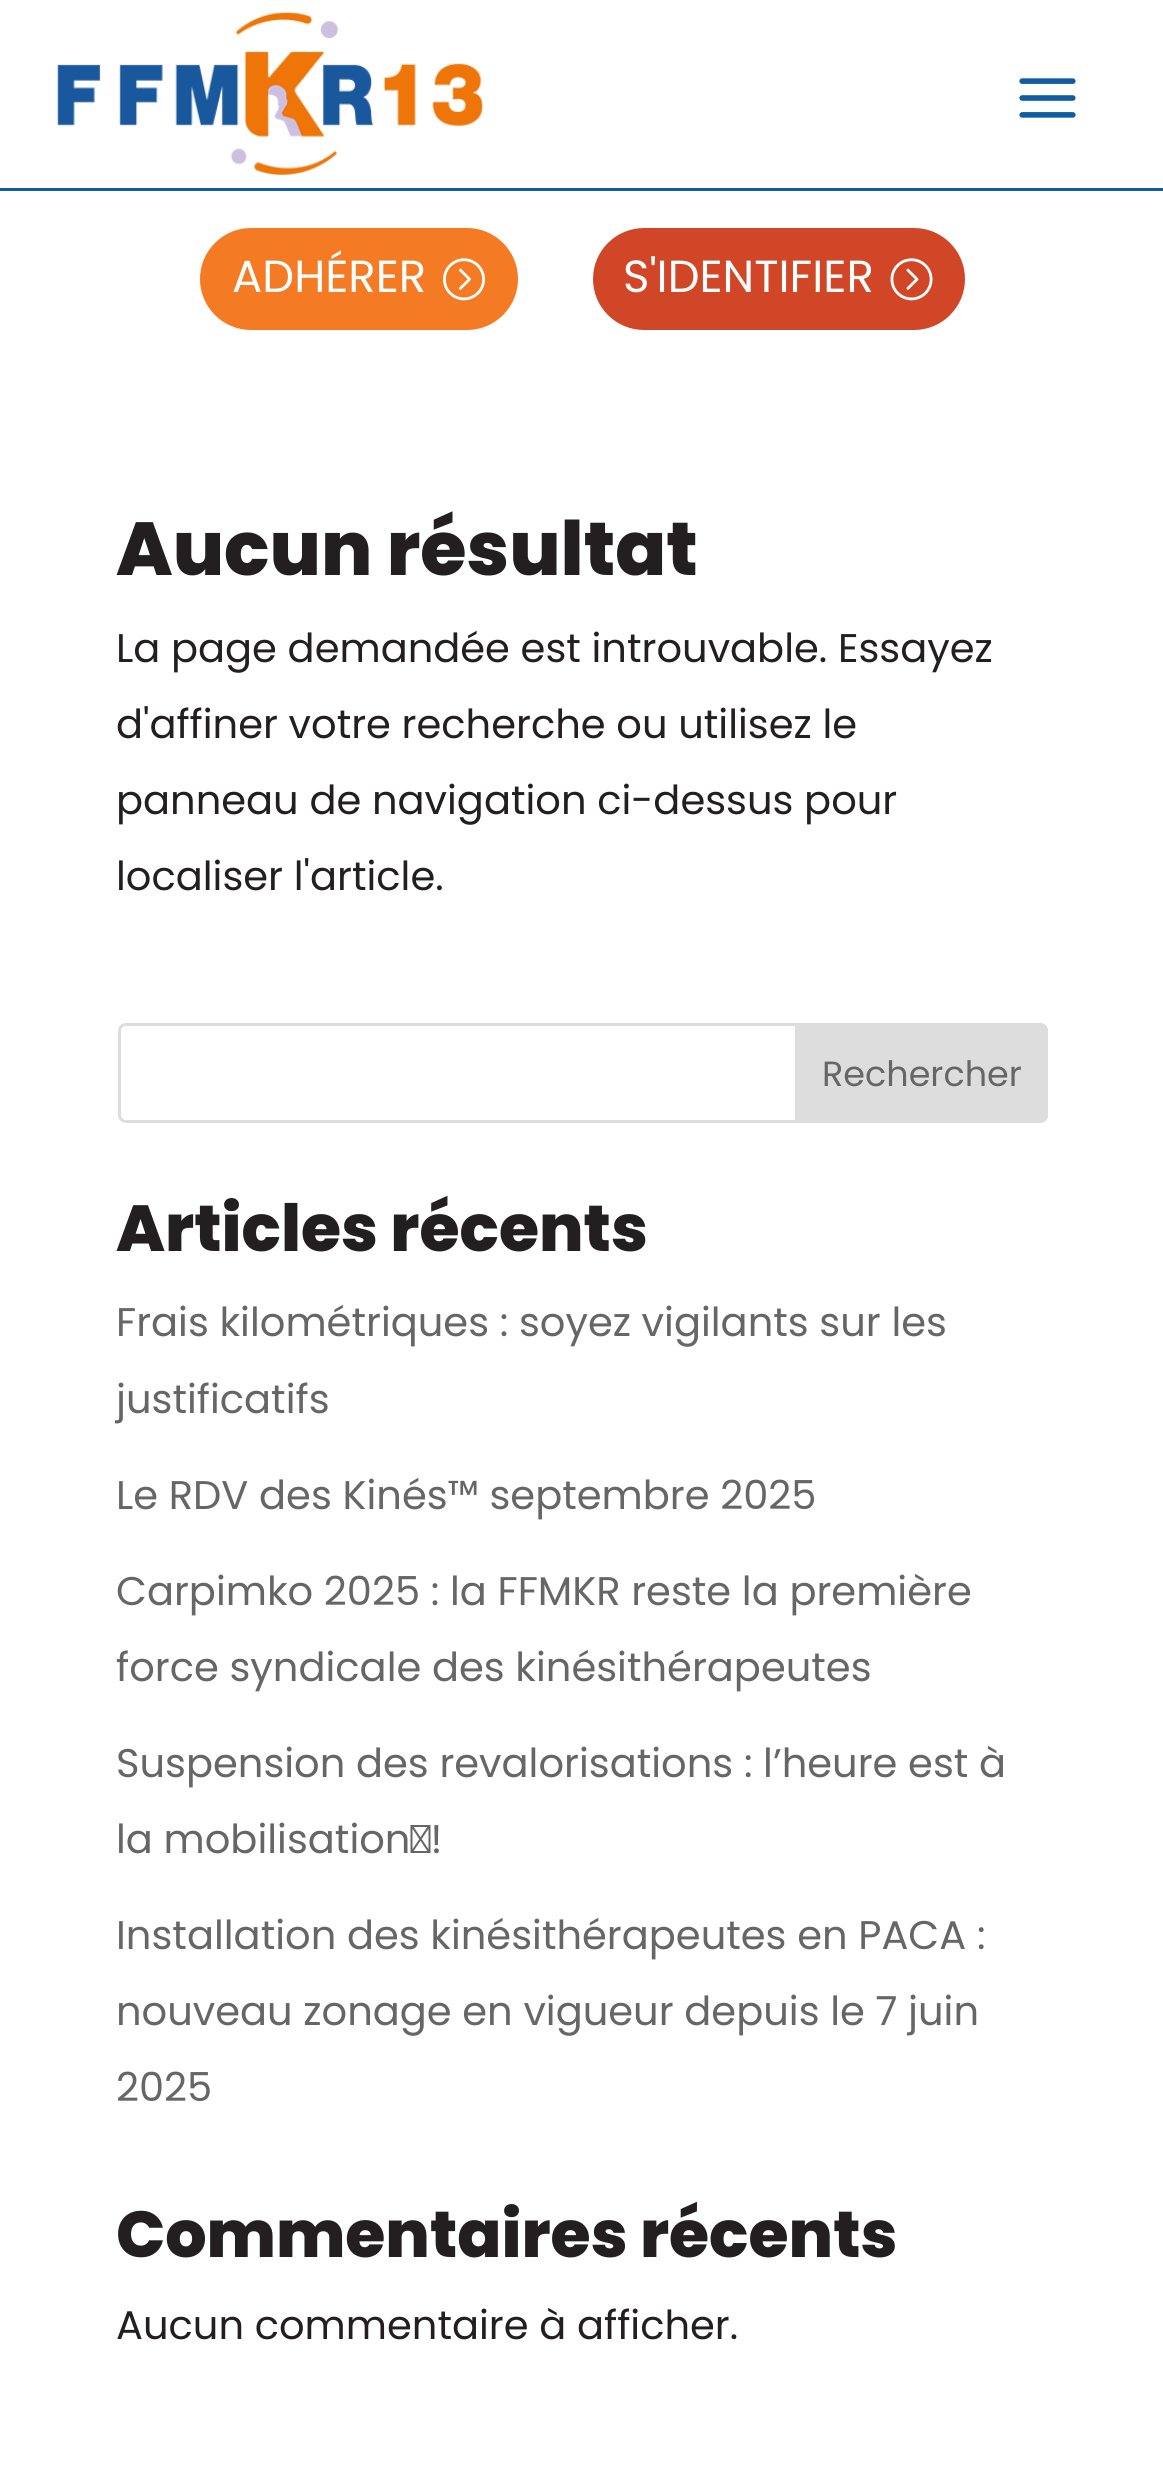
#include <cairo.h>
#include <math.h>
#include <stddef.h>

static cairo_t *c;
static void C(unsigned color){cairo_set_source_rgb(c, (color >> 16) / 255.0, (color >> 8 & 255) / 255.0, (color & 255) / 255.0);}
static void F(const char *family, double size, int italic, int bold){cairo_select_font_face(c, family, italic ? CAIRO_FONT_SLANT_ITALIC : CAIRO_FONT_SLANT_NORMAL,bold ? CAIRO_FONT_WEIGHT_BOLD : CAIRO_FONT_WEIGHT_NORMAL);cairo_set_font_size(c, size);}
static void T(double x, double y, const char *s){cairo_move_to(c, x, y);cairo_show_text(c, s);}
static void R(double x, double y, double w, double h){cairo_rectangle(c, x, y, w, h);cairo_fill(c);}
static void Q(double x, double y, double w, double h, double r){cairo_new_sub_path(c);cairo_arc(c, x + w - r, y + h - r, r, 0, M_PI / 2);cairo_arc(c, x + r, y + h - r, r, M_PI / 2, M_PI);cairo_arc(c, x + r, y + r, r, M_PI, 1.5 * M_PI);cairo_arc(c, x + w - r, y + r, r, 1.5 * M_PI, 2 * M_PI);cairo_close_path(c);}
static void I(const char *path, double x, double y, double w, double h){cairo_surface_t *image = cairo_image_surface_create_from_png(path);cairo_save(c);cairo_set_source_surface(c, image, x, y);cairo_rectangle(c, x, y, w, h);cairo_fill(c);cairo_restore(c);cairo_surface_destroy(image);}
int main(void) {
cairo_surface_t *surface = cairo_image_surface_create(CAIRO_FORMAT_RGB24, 1163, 2486);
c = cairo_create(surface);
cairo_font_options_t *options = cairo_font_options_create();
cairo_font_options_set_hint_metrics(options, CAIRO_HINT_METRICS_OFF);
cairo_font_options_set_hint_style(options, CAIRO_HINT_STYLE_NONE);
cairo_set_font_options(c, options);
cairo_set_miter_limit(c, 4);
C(0xffffff);
cairo_paint(c);
C(0x105da1);
R(0,188,1163,3);
I("1.png",57,12,426,163);
I("2.png",1019,78,57,40);
C(0xf47b23);
Q(200,228,318,102,51);
cairo_fill(c);
F("Poppins",45,0,0);
C(0xffffff);
T(232,292,"ADHÉRER");
I("3.png",443,258,42,43);
C(0xd14627);
Q(593,228,372,102,51);
cairo_fill(c);
C(0xffffff);
T(623,292,"S'IDENTIFIER");
I("4.png",890,258,43,43);
F("Poppins ExtraBold",75,0,0);
C(0x231f20);
T(116,575,"Aucun résultat");
F("Poppins",40,0,0);
T(116,662,"La page demandée est introuvable. Essayez");
T(116,738,"d'affiner votre recherche ou utilisez le");
T(116,814,"panneau de navigation ci-dessus pour");
T(116,890,"localiser l'article.");
Q(119.5,1024.5,927,97,6.5);
C(0xdddddd);
cairo_set_line_width(c,3);
cairo_stroke(c);
cairo_new_path(c);
cairo_move_to(c,796.5,1024.5);
cairo_line_to(c,1040,1024.5);
cairo_curve_to(c,1043.5,1024.5,1046.5,1027.5,1046.5,1031);
cairo_line_to(c,1046.5,1115);
cairo_curve_to(c,1046.5,1118.5,1043.5,1121.5,1040,1121.5);
cairo_line_to(c,796.5,1121.5);
cairo_close_path(c);
cairo_fill_preserve(c);
cairo_stroke(c);
F("Poppins",35,0,0);
C(0x666666);
T(822,1086,"Rechercher");
F("Poppins ExtraBold",65,0,0);
C(0x231f20);
T(116,1251,"Articles récents");
F("Poppins",40,0,0);
C(0x666666);
T(116,1336,"Frais kilométriques : soyez vigilants sur les");
T(116,1413,"justificatifs");
T(116,1509,"Le RDV des Kinés™ septembre 2025");
T(116,1605,"Carpimko 2025 : la FFMKR reste la première");
T(116,1681,"force syndicale des kinésithérapeutes");
T(116,1777,"Suspension des revalorisations : l’heure est à");
T(116,1853,"la mobilisation !");
T(116,1949,"Installation des kinésithérapeutes en PACA :");
T(116,2025,"nouveau zonage en vigueur depuis le 7 juin");
T(116,2101,"2025");
F("Poppins ExtraBold",65,0,0);
C(0x231f20);
T(116,2257,"Commentaires récents");
F("Poppins",40,0,0);
T(116,2339,"Aucun commentaire à afficher.");
cairo_surface_write_to_png(surface, "o.png");
cairo_font_options_destroy(options);
cairo_destroy(c);
cairo_surface_destroy(surface);
return 0;
}
